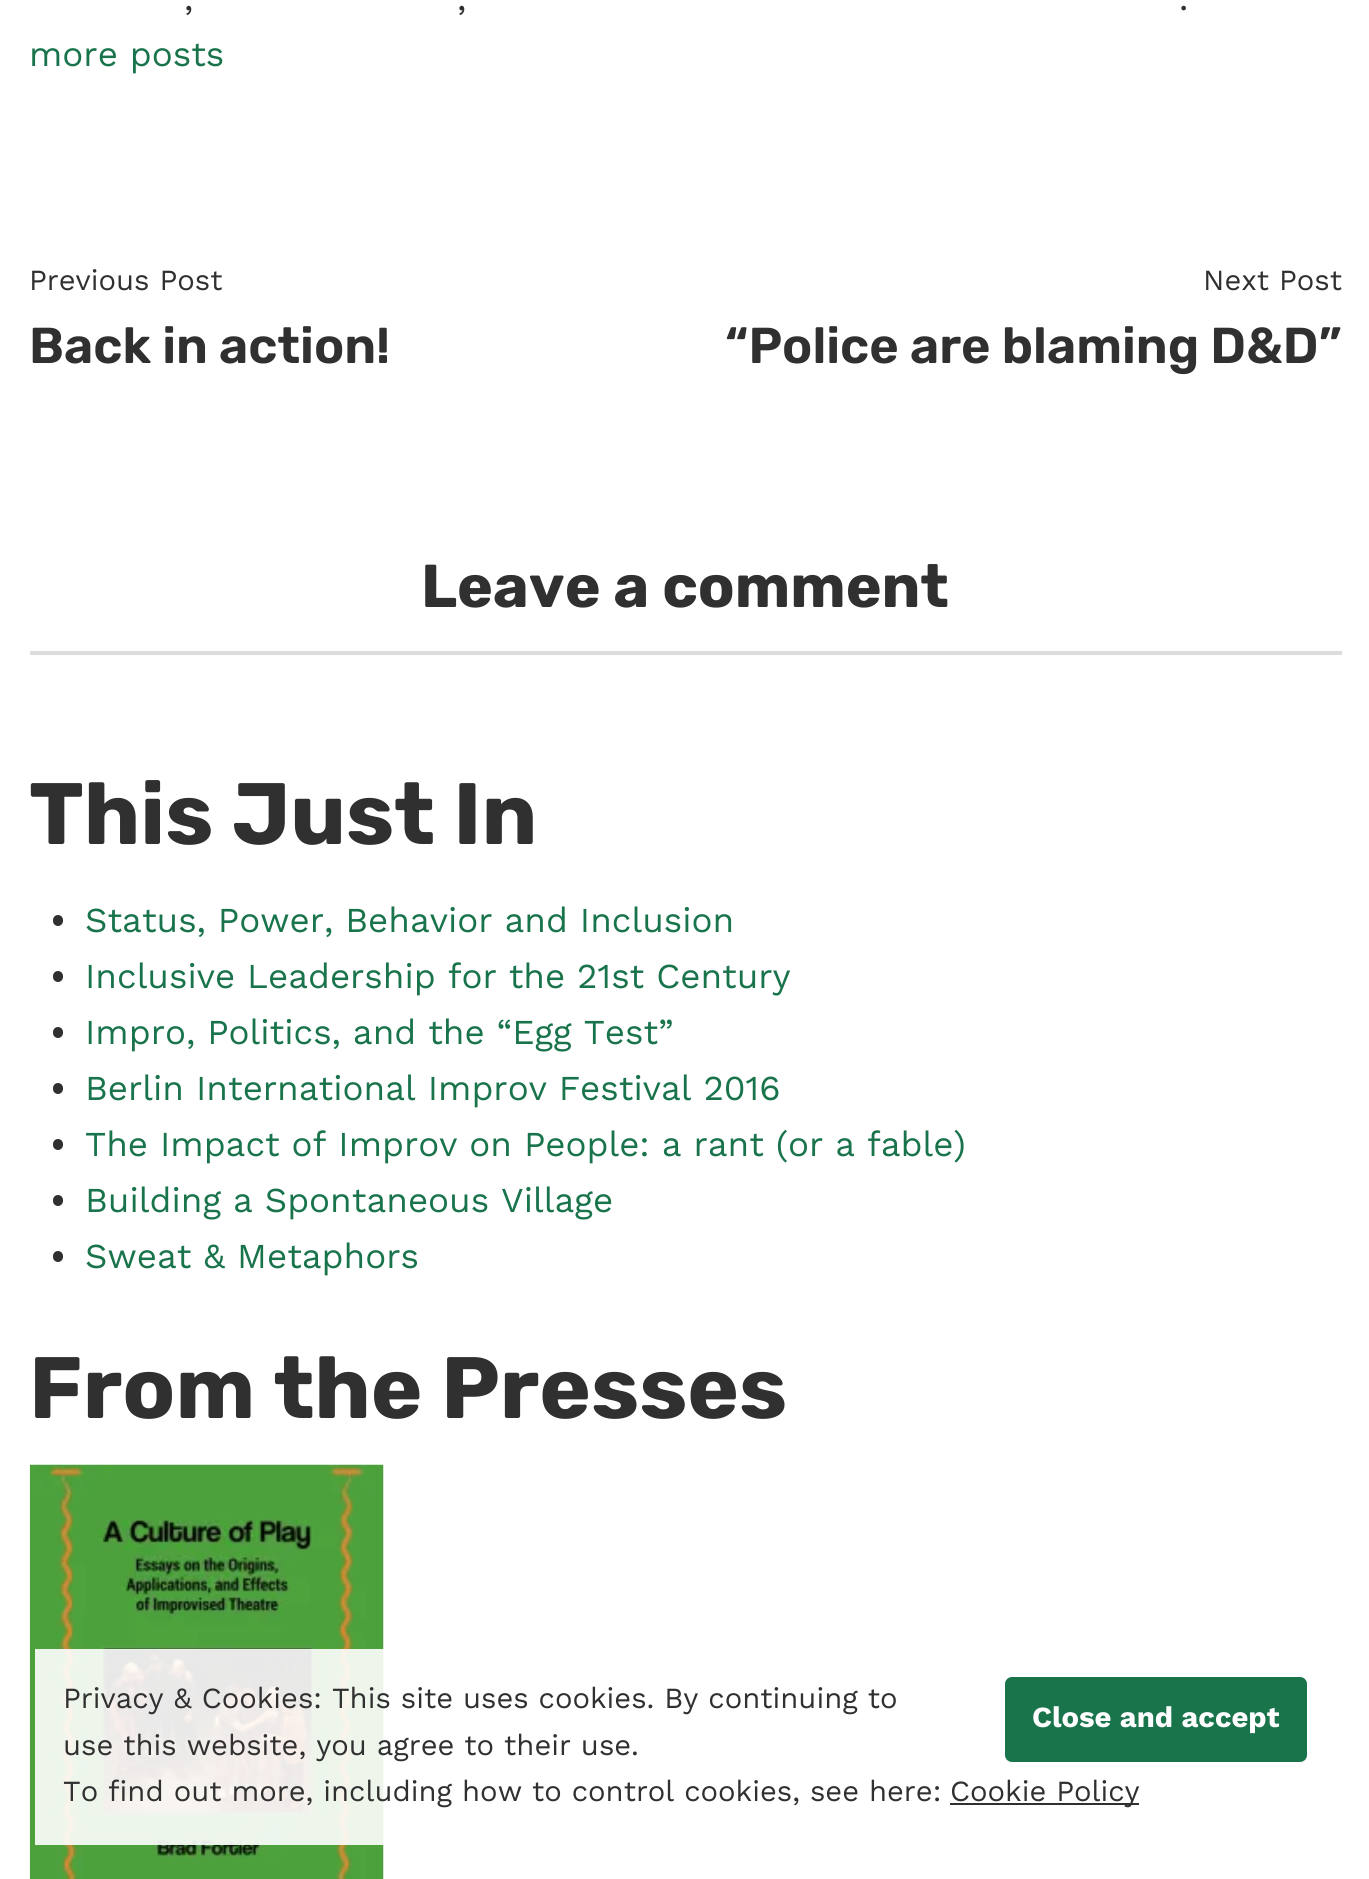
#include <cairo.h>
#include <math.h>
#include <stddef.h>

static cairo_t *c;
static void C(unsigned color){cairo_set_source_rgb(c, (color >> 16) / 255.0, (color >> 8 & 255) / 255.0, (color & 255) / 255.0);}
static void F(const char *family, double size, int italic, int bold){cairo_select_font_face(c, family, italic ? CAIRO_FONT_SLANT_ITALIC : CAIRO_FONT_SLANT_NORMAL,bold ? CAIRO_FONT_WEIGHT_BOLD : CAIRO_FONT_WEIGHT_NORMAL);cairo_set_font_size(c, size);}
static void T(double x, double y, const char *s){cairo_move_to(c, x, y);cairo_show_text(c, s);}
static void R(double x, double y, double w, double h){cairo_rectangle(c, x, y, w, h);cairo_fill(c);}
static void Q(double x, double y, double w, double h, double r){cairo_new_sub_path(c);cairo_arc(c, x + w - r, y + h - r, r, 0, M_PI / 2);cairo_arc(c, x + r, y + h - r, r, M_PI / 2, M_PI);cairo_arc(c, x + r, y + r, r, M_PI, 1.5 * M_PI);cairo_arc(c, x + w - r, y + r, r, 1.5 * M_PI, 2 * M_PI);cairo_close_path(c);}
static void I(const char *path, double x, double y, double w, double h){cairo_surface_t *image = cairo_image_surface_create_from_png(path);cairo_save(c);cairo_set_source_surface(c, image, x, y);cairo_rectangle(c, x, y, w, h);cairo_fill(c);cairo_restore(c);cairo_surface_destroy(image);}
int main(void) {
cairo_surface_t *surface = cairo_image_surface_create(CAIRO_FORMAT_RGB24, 1369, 1879);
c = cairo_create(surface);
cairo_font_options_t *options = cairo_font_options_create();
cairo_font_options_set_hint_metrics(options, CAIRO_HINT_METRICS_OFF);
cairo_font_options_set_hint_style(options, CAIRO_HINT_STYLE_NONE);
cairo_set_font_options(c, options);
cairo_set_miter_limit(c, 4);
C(0xffffff);
cairo_paint(c);
F("Work Sans",35,0,0);
C(0x303030);
T(184,10,",");
T(457,10,",");
T(1179,10,".");
C(0x19744c);
T(29,66,"more posts");
F("Work Sans",29.2,0,0);
C(0x303030);
T(29,290,"Previous Post");
F("Rubik SemiBold",50.4,0,0);
T(29,363,"Back in action!");
F("Work Sans",29.2,0,0);
T(1203,290,"Next Post");
F("Rubik SemiBold",50.4,0,0);
T(725,363,"“Police are blaming D&D”");
F("Rubik",60.5,0,1);
T(421,607,"Leave a comment");
C(0xdcdcde);
R(30,651,1312,4);
F("Rubik",87,0,1);
C(0x303030);
T(29,844,"This Just In");
Q(53,915,10,11,5);
cairo_fill(c);
F("Work Sans",35,0,0);
C(0x19744c);
T(85,932,"Status, Power, Behavior and Inclusion");
C(0x303030);
Q(53,971,10,11,5);
cairo_fill(c);
C(0x19744c);
T(85,988,"Inclusive Leadership for the 21st Century");
C(0x303030);
Q(53,1027,10,11,5);
cairo_fill(c);
C(0x19744c);
T(85,1044,"Impro, Politics, and the “Egg Test”");
C(0x303030);
Q(53,1083,10,11,5);
cairo_fill(c);
C(0x19744c);
T(85,1100,"Berlin International Improv Festival 2016");
C(0x303030);
Q(53,1139,10,11,5);
cairo_fill(c);
C(0x19744c);
T(85,1156,"The Impact of Improv on People: a rant (or a fable)");
C(0x303030);
Q(53,1195,10,11,5);
cairo_fill(c);
C(0x19744c);
T(85,1212,"Building a Spontaneous Village");
C(0x303030);
Q(53,1251,10,11,5);
cairo_fill(c);
C(0x19744c);
T(85,1268,"Sweat & Metaphors");
F("Rubik",87,0,1);
C(0x303030);
T(29,1418,"From the Presses");
I("1.png",29,1464,355,415);
cairo_set_source_rgba(c,1,1,1,0.9);
R(35,1649,349,196);
F("Work Sans",29.2,0,0);
C(0x303030);
T(63,1708,"Privacy & Cookies: This site uses cookies. By continuing to");
C(0x19744c);
Q(1005,1677,302,85,7);
cairo_fill(c);
F("Work Sans",29.2,0,1);
C(0xffffff);
T(1032,1727,"Close and accept");
F("Work Sans",29.2,0,0);
C(0x303030);
T(63,1755,"use this website, you agree to their use.");
T(63,1801,"To find out more, including how to control cookies, see here:");
R(950,1803,189,2);
T(950,1801,"Cookie Policy");
cairo_surface_write_to_png(surface, "o.png");
cairo_font_options_destroy(options);
cairo_destroy(c);
cairo_surface_destroy(surface);
return 0;
}
